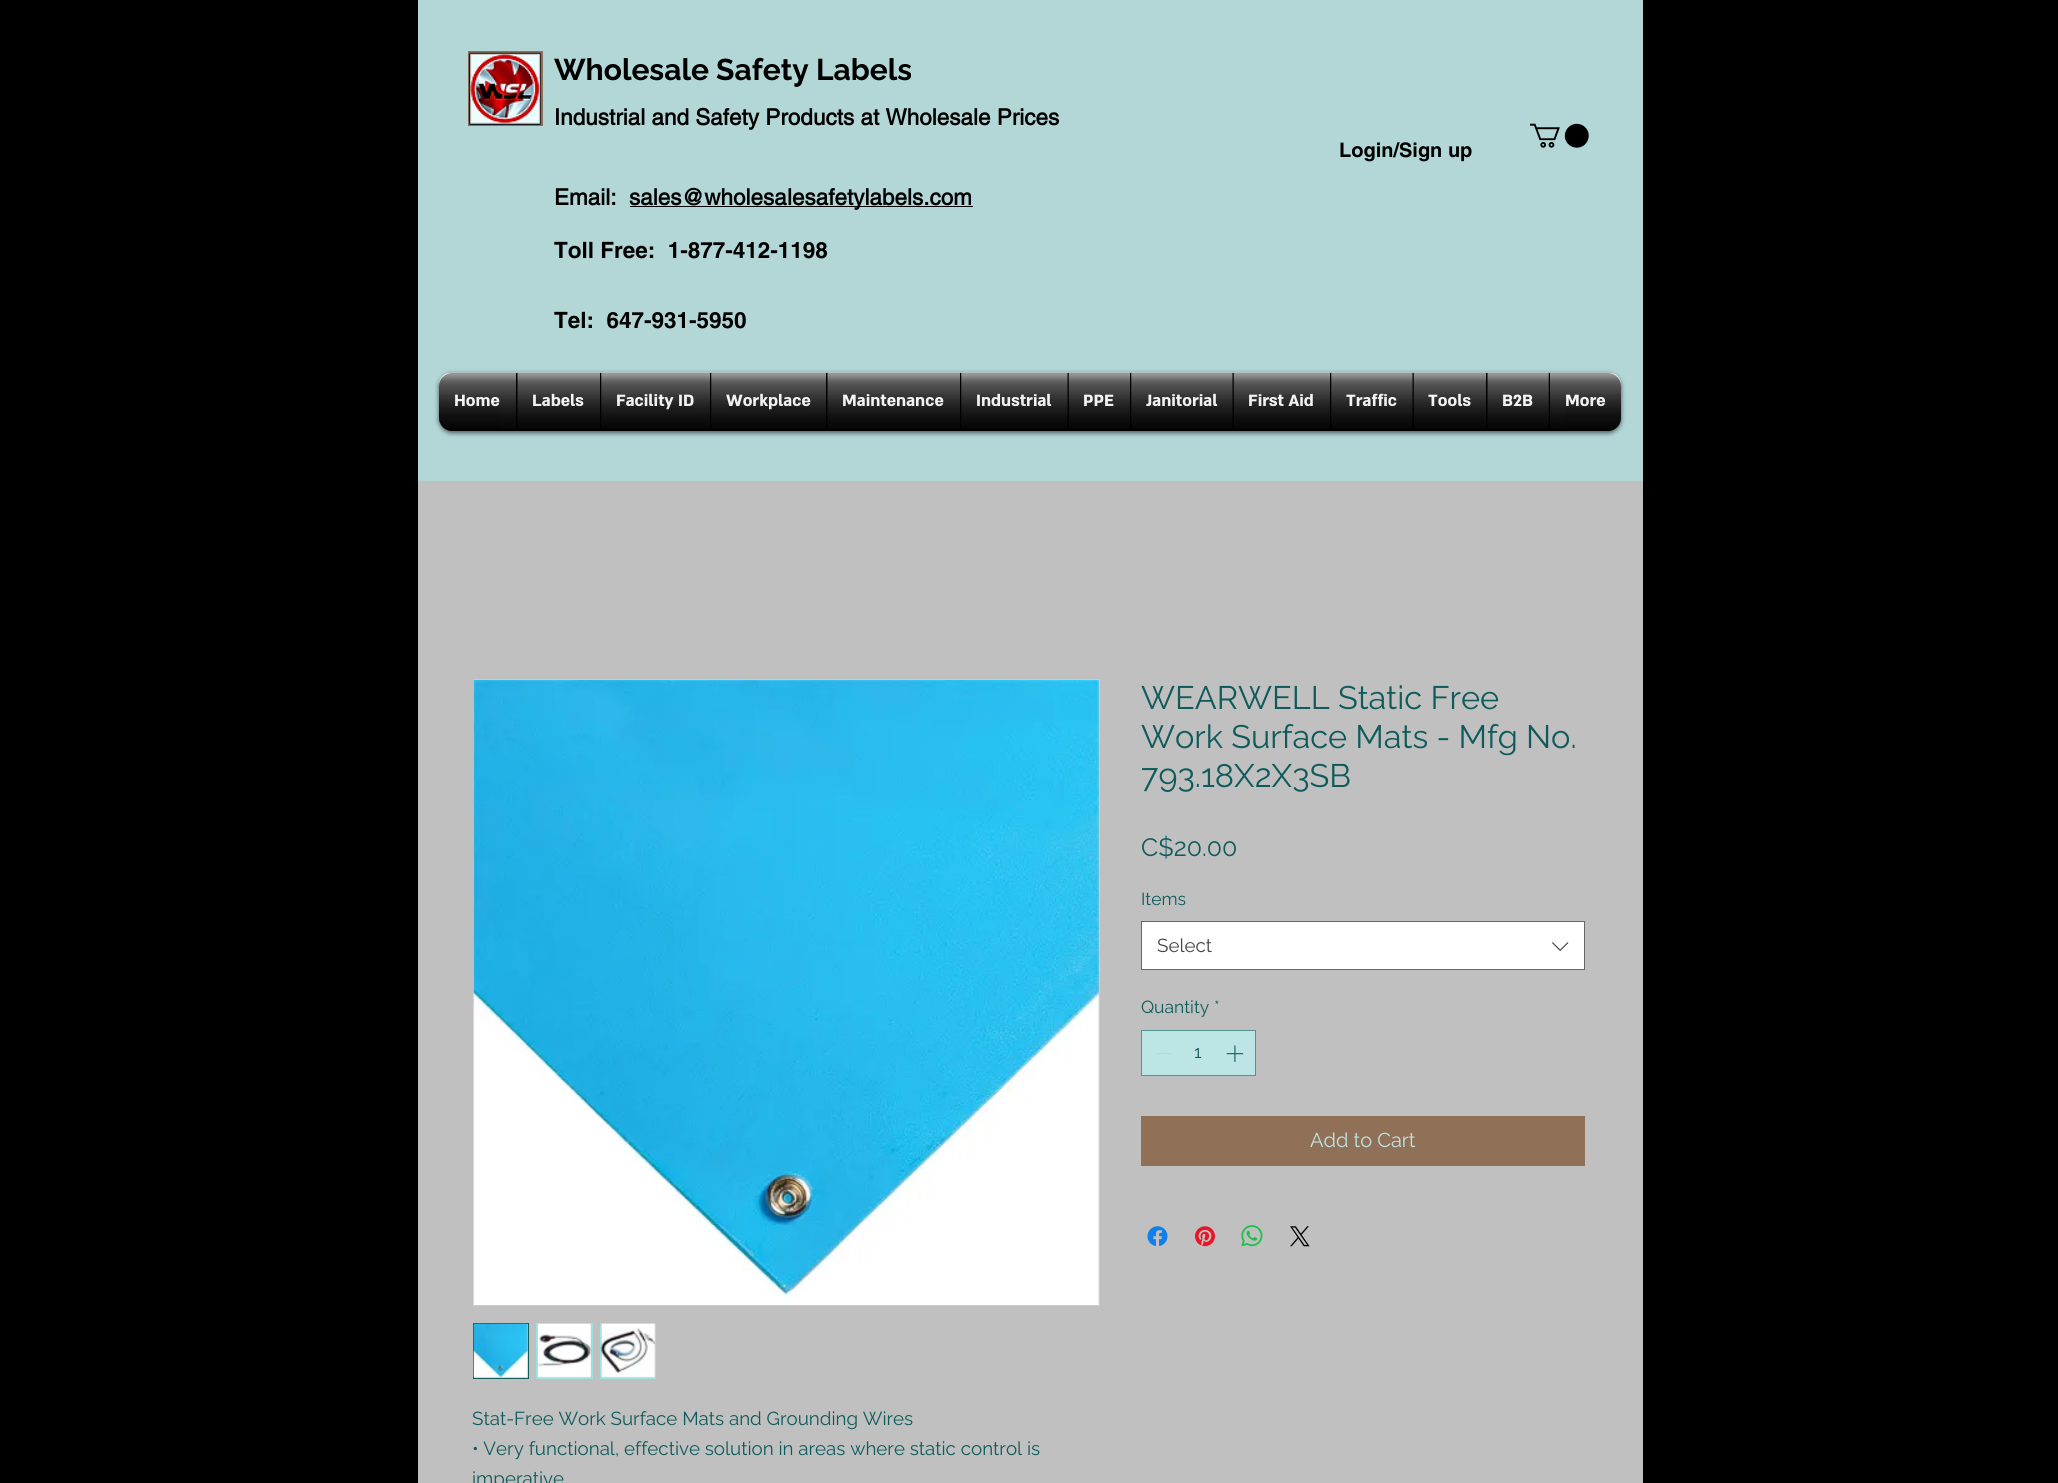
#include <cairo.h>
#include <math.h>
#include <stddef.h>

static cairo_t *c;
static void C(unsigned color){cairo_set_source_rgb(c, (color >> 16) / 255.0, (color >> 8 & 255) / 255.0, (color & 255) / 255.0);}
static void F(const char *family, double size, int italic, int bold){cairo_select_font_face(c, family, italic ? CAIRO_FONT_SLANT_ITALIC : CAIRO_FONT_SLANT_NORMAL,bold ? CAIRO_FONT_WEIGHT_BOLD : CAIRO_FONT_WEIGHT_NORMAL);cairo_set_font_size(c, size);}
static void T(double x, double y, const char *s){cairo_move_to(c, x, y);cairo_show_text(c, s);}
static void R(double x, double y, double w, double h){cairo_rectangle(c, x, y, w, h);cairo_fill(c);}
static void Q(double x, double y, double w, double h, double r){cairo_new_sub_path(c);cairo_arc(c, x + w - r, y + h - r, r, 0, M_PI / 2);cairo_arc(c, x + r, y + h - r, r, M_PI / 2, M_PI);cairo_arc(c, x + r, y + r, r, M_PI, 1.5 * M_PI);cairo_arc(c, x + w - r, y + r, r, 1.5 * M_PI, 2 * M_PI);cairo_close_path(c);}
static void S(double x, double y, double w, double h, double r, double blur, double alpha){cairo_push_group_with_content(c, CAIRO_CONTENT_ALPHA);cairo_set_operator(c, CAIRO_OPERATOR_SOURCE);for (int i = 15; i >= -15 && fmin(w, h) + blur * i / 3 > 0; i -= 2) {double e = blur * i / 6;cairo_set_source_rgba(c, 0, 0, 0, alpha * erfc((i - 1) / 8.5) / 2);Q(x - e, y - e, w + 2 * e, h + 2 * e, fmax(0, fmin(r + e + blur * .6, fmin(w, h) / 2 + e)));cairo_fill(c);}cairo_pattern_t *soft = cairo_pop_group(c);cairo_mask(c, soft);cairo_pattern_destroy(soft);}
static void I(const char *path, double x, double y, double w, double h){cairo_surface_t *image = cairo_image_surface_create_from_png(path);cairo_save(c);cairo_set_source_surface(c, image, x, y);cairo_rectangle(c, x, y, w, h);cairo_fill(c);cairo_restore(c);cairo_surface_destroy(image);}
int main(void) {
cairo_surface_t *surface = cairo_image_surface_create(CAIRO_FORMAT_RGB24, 2058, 1483);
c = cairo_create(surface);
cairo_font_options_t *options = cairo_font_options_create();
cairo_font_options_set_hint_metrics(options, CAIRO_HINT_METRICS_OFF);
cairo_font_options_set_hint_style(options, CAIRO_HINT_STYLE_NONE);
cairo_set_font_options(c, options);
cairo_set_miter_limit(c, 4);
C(0x000000);
cairo_paint(c);
C(0xb3d7d7);
R(418,0,1225,481);
C(0x907057);
R(468,51,75,75);
I("1.png",468,52,74,73);
F("Raleway",30,0,1);
C(0x000000);
T(554,80,"Wholesale Safety Labels");
F("helvetica",22.5,0,1);
T(554,125,"Industrial and Safety Products at Wholesale Prices");
I("2.png",1530,123,59,25);
F("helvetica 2",20,0,1);
T(1339,157,"Login/Sign up");
F("helvetica",22.5,0,1);
T(554,205,"Email:");
R(630,206,343,1);
T(629,205,"sales@wholesalesafetylabels.com");
F("helvetica 2",22.5,0,1);
T(554,258,"Toll Free:  1-877-412-1198");
T(554,328,"Tel:  647-931-5950");
C(0x000000);
S(439,374,1182,59,13,2.5,.6);
I("3.png",439,372,1182,57);
I("4.png",439,419,1182,12);
C(0x000000);
cairo_new_path(c);
cairo_move_to(c,452,373);
cairo_line_to(c,516,373);
cairo_line_to(c,516,431);
cairo_line_to(c,452,431);
cairo_curve_to(c,445,431,439,425,439,418);
cairo_line_to(c,439,386);
cairo_curve_to(c,439,379,445,373,452,373);
cairo_close_path(c);
cairo_fill(c);
F("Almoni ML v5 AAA",18.75,0,1);
C(0xffffff);
T(454,406,"Home");
I("5.png",439,372,77,57);
I("6.png",439,394,61,37);
C(0x000000);
R(516,373,310,58);
C(0xffffff);
T(532,406,"Labels");
I("7.png",517,372,83,57);
I("8.png",533,394,51,12);
T(616,406,"Facility ID");
I("9.png",601,372,109,57);
I("10.png",617,394,77,16);
T(726,406,"Workplace");
I("11.png",711,372,116,57);
I("12.png",726,394,84,16);
C(0x000000);
R(826,373,660,58);
C(0xffffff);
T(842,406,"Maintenance");
I("13.png",827,372,133,57);
I("14.png",843,394,101,12);
T(976,406,"Industrial");
I("15.png",961,372,107,57);
I("16.png",977,394,75,12);
T(1083,406,"PPE");
I("17.png",1068,372,62,57);
I("18.png",1084,394,30,12);
T(1146,406,"Janitorial");
I("19.png",1131,372,102,57);
I("20.png",1145,394,72,12);
T(1248,406,"First Aid");
I("21.png",1233,372,97,57);
I("22.png",1249,394,65,12);
T(1346,406,"Traffic");
I("23.png",1331,372,82,57);
I("24.png",1346,394,50,12);
T(1428,406,"Tools");
I("25.png",1413,372,74,57);
I("26.png",1428,394,43,12);
C(0x000000);
R(1486,373,63,58);
C(0xffffff);
T(1502,406,"B2B");
I("27.png",1487,372,62,57);
I("28.png",1503,394,30,12);
C(0x000000);
cairo_new_path(c);
cairo_move_to(c,1549,373);
cairo_line_to(c,1608,373);
cairo_curve_to(c,1615,373,1621,379,1621,386);
cairo_line_to(c,1621,418);
cairo_curve_to(c,1621,425,1615,431,1608,431);
cairo_line_to(c,1549,431);
cairo_close_path(c);
cairo_fill(c);
C(0xffffff);
T(1565,406,"More");
I("29.png",1550,372,71,57);
I("30.png",1565,394,56,37);
C(0xc1c0c0);
R(418,481,1225,1002);
F("Raleway",32.5,0,0);
C(0x0f5b5b);
T(1141,709,"WEARWELL Static Free");
T(1141,748,"Work Surface Mats - Mfg No.");
T(1141,787,"793.18X2X3SB");
F("Raleway",25,0,0);
T(1141,856,"C$20.00");
F("Raleway",17.5,0,0);
T(1141,905,"Items");
C(0xffffff);
cairo_rectangle(c,1141.5,921.5,443,48);
cairo_fill_preserve(c);
C(0x666666);
cairo_set_line_width(c,1);
cairo_stroke(c);
F("Raleway",18.75,0,0);
C(0x444444);
T(1157,952,"Select");
I("31.png",1552,942,17,10);
F("Raleway",17.5,0,0);
C(0x0f5b5b);
T(1141,1013,"Quantity");
T(1214,1013,"*");
C(0xbee5e5);
cairo_rectangle(c,1141.5,1030.5,114,45);
cairo_fill_preserve(c);
C(0x559292);
cairo_stroke(c);
C(0xc3d6d6);
R(1156,1053,16,1);
C(0x0f5b5b);
T(1194,1058,"1");
I("32.png",1226,1045,18,17);
C(0x907057);
R(1141,1116,444,50);
F("Raleway",20,0,0);
C(0xbee5e5);
T(1310,1147,"Add to Cart");
I("33.png",1147,1226,21,21);
I("34.png",1195,1226,20,21);
I("35.png",1241,1225,22,22);
I("36.png",1290,1226,20,21);
cairo_rectangle(c,473.5,679.5,626,626);
C(0x99e2e2);
cairo_stroke(c);
I("37.png",473,680,626,625);
cairo_rectangle(c,473.5,1323.5,55,55);
C(0x0f5b5b);
cairo_stroke(c);
I("38.png",473,1323,55,55);
cairo_rectangle(c,536.5,1323.5,56,55);
C(0x99e2e2);
cairo_stroke(c);
I("39.png",537,1323,55,55);
cairo_rectangle(c,600.5,1323.5,55,55);
cairo_stroke(c);
I("40.png",600,1323,56,55);
F("Raleway",18.75,0,0);
C(0x0f5b5b);
T(472,1425,"Stat-Free Work Surface Mats and Grounding Wires");
T(472,1455,"• Very functional, effective solution in areas where static control is");
T(472,1485,"imperative");
cairo_surface_write_to_png(surface, "o.png");
cairo_font_options_destroy(options);
cairo_destroy(c);
cairo_surface_destroy(surface);
return 0;
}
